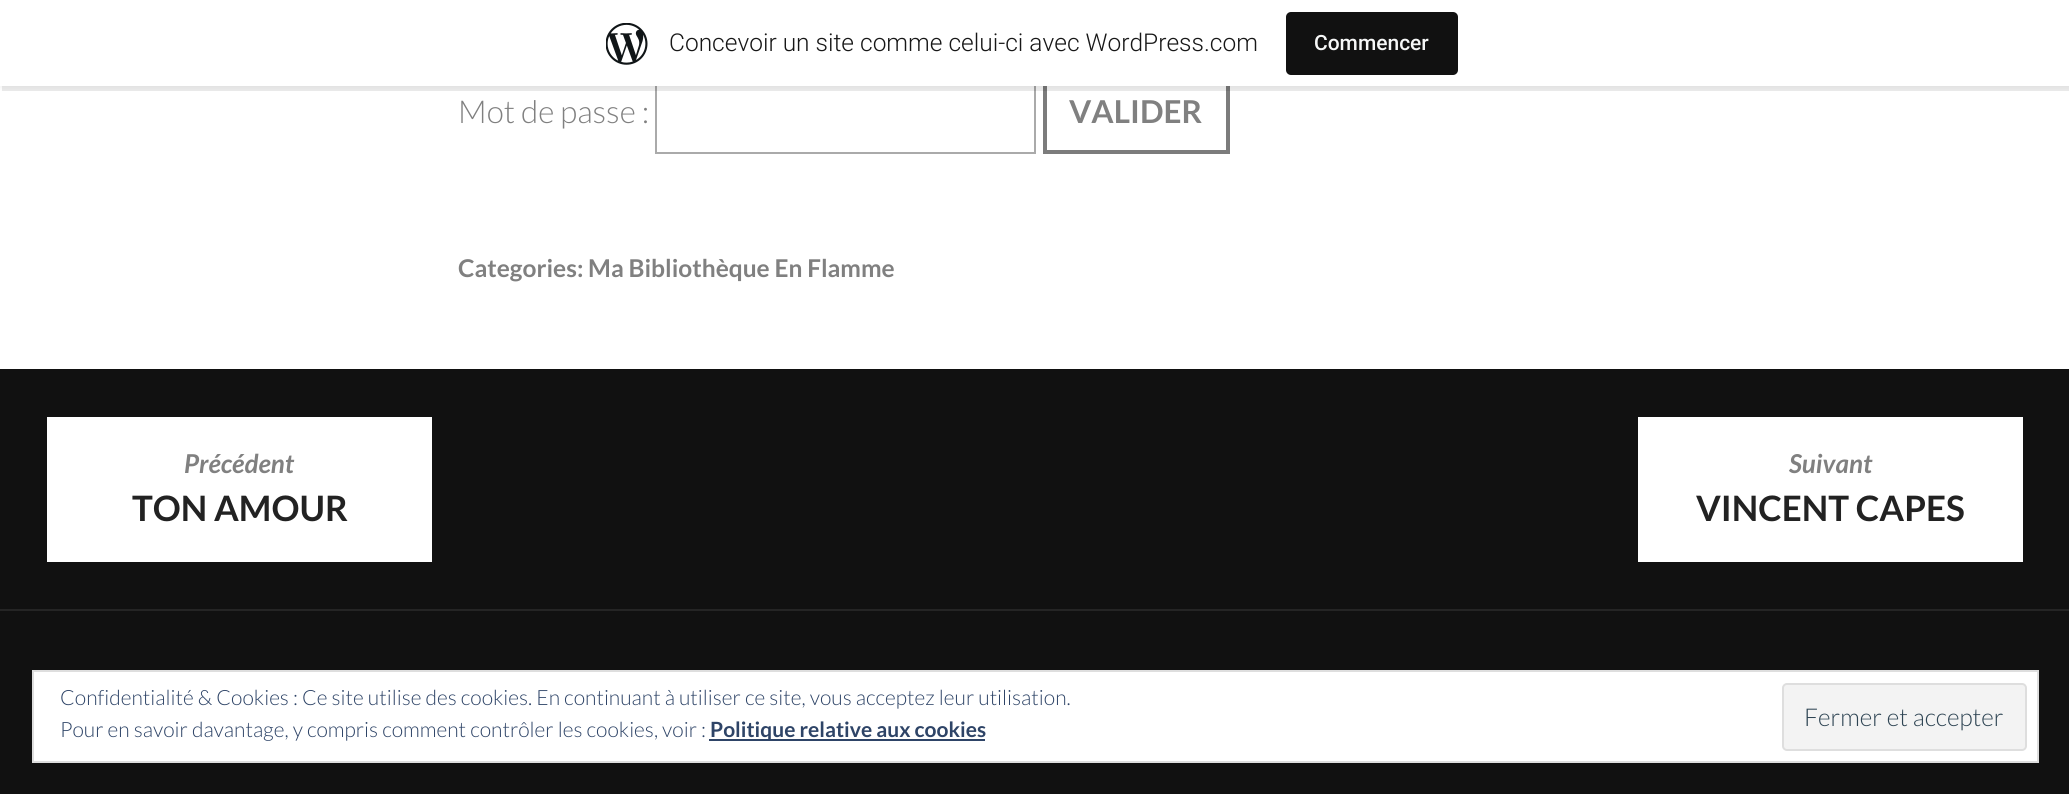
#include <cairo.h>
#include <math.h>
#include <stddef.h>

static cairo_t *c;
static void C(unsigned color){cairo_set_source_rgb(c, (color >> 16) / 255.0, (color >> 8 & 255) / 255.0, (color & 255) / 255.0);}
static void F(const char *family, double size, int italic, int bold){cairo_select_font_face(c, family, italic ? CAIRO_FONT_SLANT_ITALIC : CAIRO_FONT_SLANT_NORMAL,bold ? CAIRO_FONT_WEIGHT_BOLD : CAIRO_FONT_WEIGHT_NORMAL);cairo_set_font_size(c, size);}
static void T(double x, double y, const char *s){cairo_move_to(c, x, y);cairo_show_text(c, s);}
static void R(double x, double y, double w, double h){cairo_rectangle(c, x, y, w, h);cairo_fill(c);}
static void Q(double x, double y, double w, double h, double r){cairo_new_sub_path(c);cairo_arc(c, x + w - r, y + h - r, r, 0, M_PI / 2);cairo_arc(c, x + r, y + h - r, r, M_PI / 2, M_PI);cairo_arc(c, x + r, y + r, r, M_PI, 1.5 * M_PI);cairo_arc(c, x + w - r, y + r, r, 1.5 * M_PI, 2 * M_PI);cairo_close_path(c);}
static void S(double x, double y, double w, double h, double r, double blur, double alpha){cairo_push_group_with_content(c, CAIRO_CONTENT_ALPHA);cairo_set_operator(c, CAIRO_OPERATOR_SOURCE);for (int i = 15; i >= -15 && fmin(w, h) + blur * i / 3 > 0; i -= 2) {double e = blur * i / 6;cairo_set_source_rgba(c, 0, 0, 0, alpha * erfc((i - 1) / 8.5) / 2);Q(x - e, y - e, w + 2 * e, h + 2 * e, fmax(0, fmin(r + e + blur * .6, fmin(w, h) / 2 + e)));cairo_fill(c);}cairo_pattern_t *soft = cairo_pop_group(c);cairo_mask(c, soft);cairo_pattern_destroy(soft);}
static void I(const char *path, double x, double y, double w, double h){cairo_surface_t *image = cairo_image_surface_create_from_png(path);cairo_save(c);cairo_set_source_surface(c, image, x, y);cairo_rectangle(c, x, y, w, h);cairo_fill(c);cairo_restore(c);cairo_surface_destroy(image);}
int main(void) {
cairo_surface_t *surface = cairo_image_surface_create(CAIRO_FORMAT_RGB24, 2069, 794);
c = cairo_create(surface);
cairo_font_options_t *options = cairo_font_options_create();
cairo_font_options_set_hint_metrics(options, CAIRO_HINT_METRICS_OFF);
cairo_font_options_set_hint_style(options, CAIRO_HINT_STYLE_NONE);
cairo_set_font_options(c, options);
cairo_set_miter_limit(c, 4);
C(0xffffff);
cairo_paint(c);
cairo_rectangle(c,656,69,379,84);
C(0xaaaaaa);
cairo_stroke(c);
cairo_rectangle(c,1045,70,183,82);
C(0x7c7c7c);
cairo_set_line_width(c,4);
cairo_stroke(c);
C(0x000000);
S(0,2,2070,86,0,2,.05);
cairo_set_source_rgba(c,0,0,0,0.08);
cairo_new_path(c);
cairo_move_to(c,2,86);
cairo_line_to(c,2,91);
cairo_line_to(c,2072,91);
cairo_line_to(c,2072,5);
cairo_line_to(c,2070,5);
cairo_line_to(c,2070,86);
cairo_close_path(c);
cairo_fill(c);
C(0xffffff);
R(0,0,2069,86);
I("1.png",606,23,42,42);
F("Roboto Light",24.5,0,0);
C(0x171717);
T(669,51,"Concevoir un site comme celui-ci avec WordPress.com");
C(0x111111);
Q(1286,12,172,63,5);
cairo_fill(c);
F("Roboto Medium",21,0,0);
C(0xf6f7f7);
T(1314,50,"Commencer");
F("Lato Light",31.5,0,0);
C(0x808080);
T(458,123,"Mot de passe :");
F("Lato",31.5,0,1);
T(1069,123,"VALIDER");
F("Lato",24.5,0,1);
T(458,277,"Categories: Ma Bibliothèque En Flamme");
C(0x111111);
R(0,369,2069,240);
C(0x252525);
R(0,609,2069,2);
C(0xffffff);
R(47,417,385,145);
F("Lato",26,1,1);
C(0x808080);
T(184,473,"Précédent");
F("Lato",35,0,1);
C(0x222222);
T(132,521,"TON AMOUR");
C(0xffffff);
R(1638,417,385,145);
F("Lato",26,1,1);
C(0x808080);
T(1789,473,"Suivant");
F("Lato",35,0,1);
C(0x222222);
T(1696,521,"VINCENT CAPES");
C(0x111111);
R(0,611,2069,183);
C(0xffffff);
cairo_rectangle(c,33,671,2005,91);
cairo_fill_preserve(c);
C(0xdedede);
cairo_set_line_width(c,2);
cairo_stroke(c);
F("Lato Light",21,0,0);
C(0x2e4467);
T(60,705,"Confidentialité & Cookies : Ce site utilise des cookies. En continuant à utiliser ce site, vous acceptez leur utilisation.");
T(60,737,"Pour en savoir davantage, y compris comment contrôler les cookies, voir :");
R(709,739,276,2);
F("Lato",21,0,1);
T(710,737,"Politique relative aux cookies");
C(0xf3f3f3);
Q(1783,684,243,66,4);
cairo_fill_preserve(c);
C(0xdedede);
cairo_stroke(c);
F("Lato Light",24.5,0,0);
C(0x2e4453);
T(1804,726,"Fermer et accepter");
cairo_surface_write_to_png(surface, "o.png");
cairo_font_options_destroy(options);
cairo_destroy(c);
cairo_surface_destroy(surface);
return 0;
}
